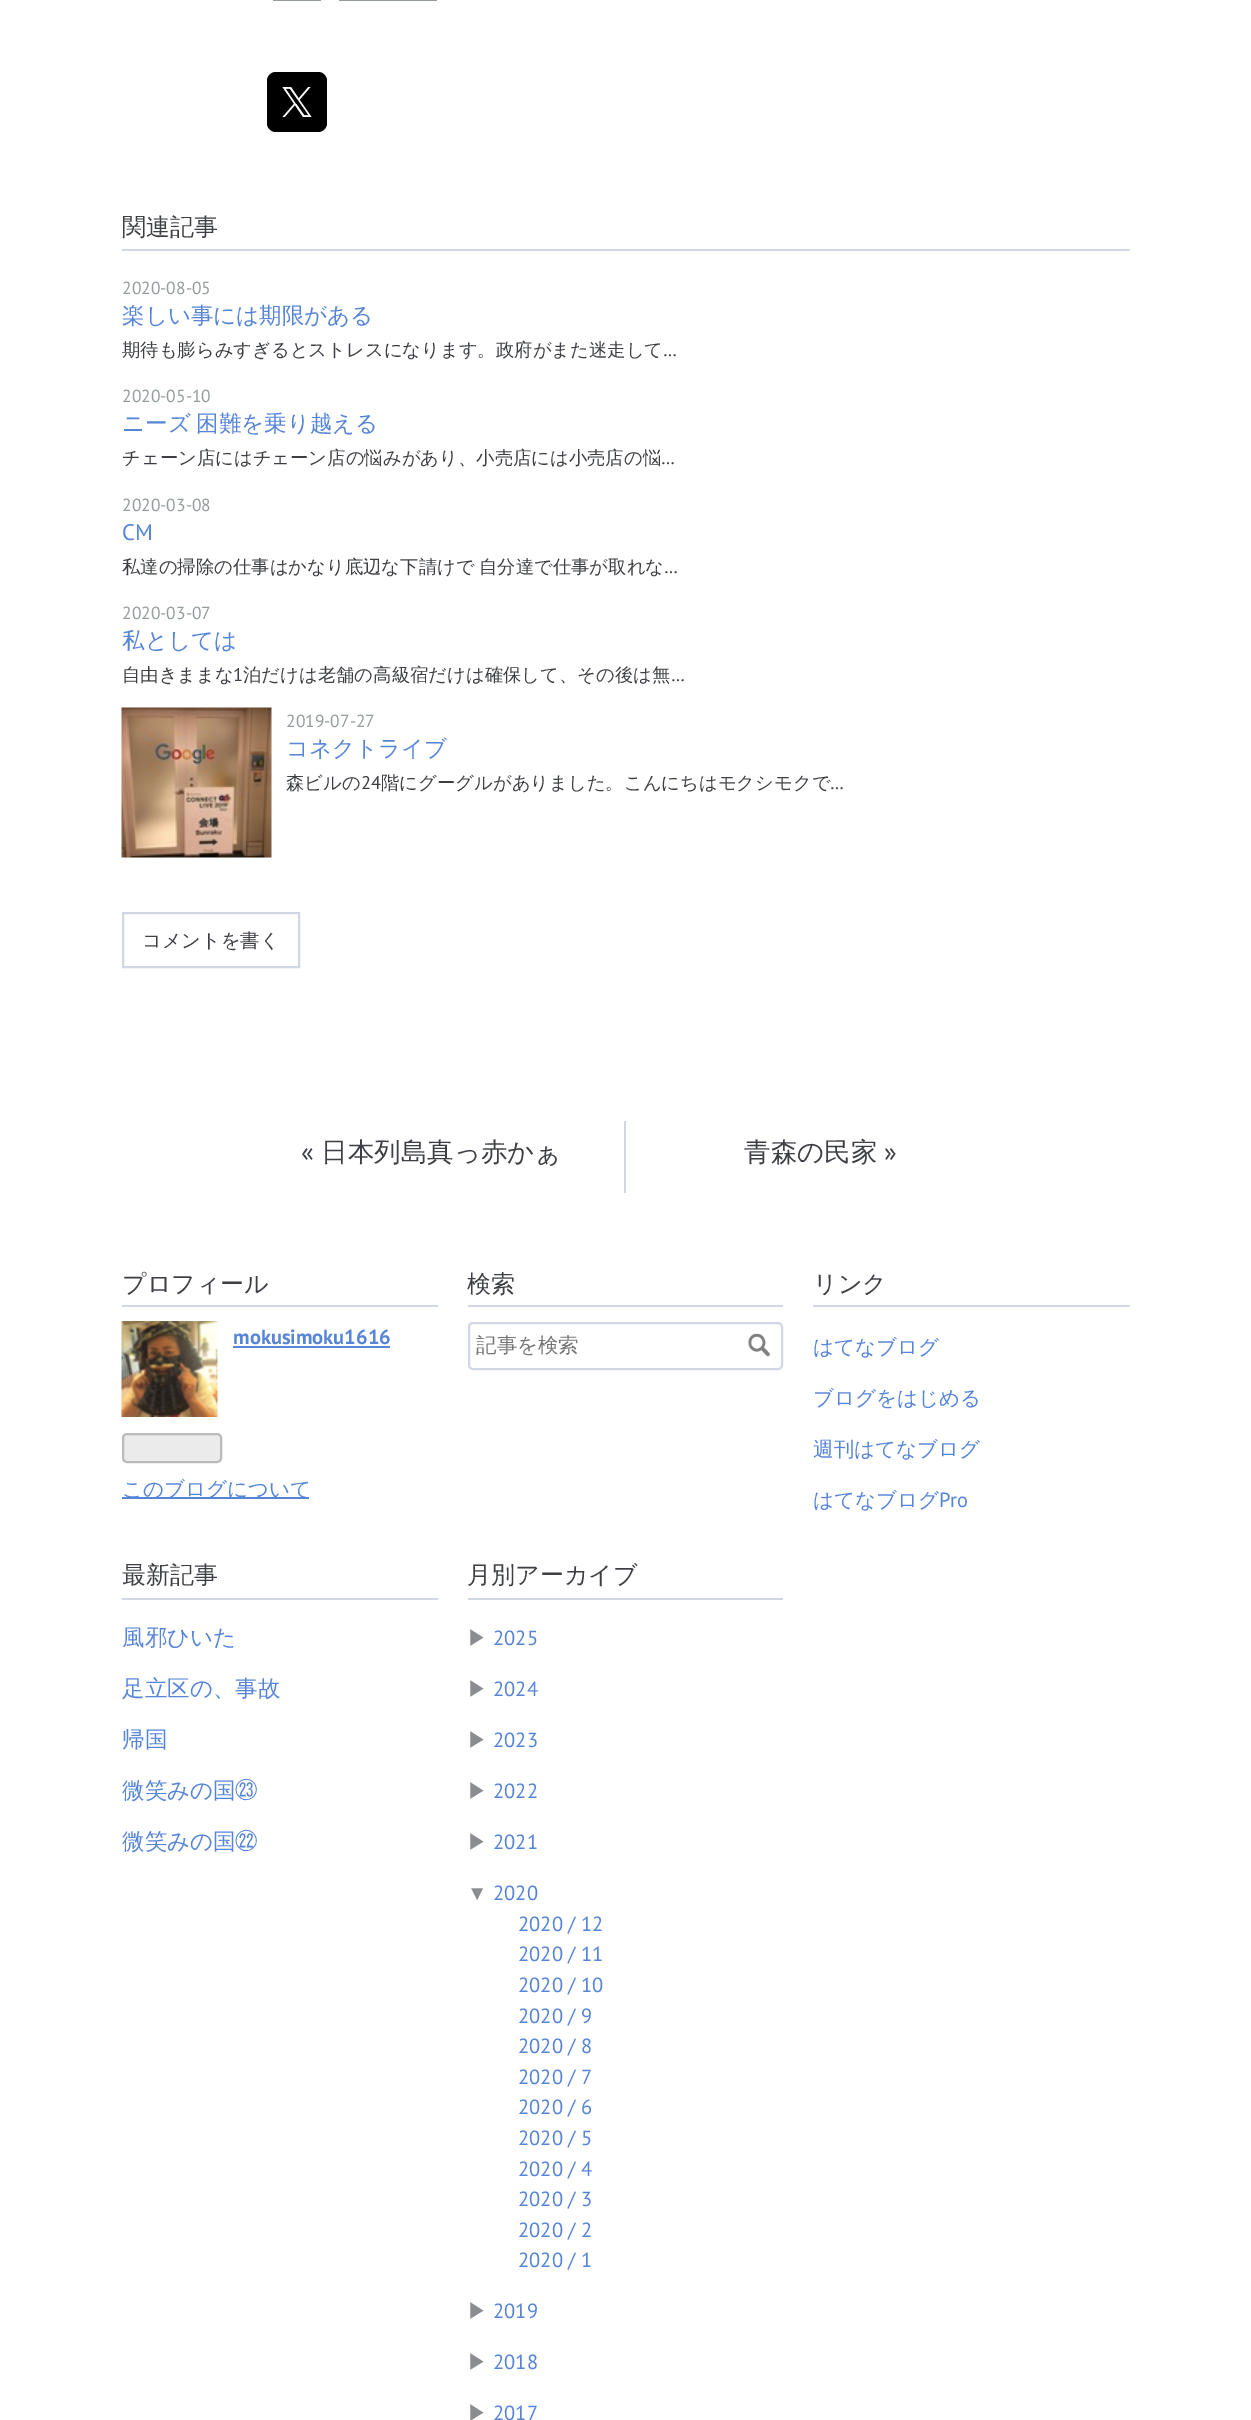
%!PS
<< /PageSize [1251 2420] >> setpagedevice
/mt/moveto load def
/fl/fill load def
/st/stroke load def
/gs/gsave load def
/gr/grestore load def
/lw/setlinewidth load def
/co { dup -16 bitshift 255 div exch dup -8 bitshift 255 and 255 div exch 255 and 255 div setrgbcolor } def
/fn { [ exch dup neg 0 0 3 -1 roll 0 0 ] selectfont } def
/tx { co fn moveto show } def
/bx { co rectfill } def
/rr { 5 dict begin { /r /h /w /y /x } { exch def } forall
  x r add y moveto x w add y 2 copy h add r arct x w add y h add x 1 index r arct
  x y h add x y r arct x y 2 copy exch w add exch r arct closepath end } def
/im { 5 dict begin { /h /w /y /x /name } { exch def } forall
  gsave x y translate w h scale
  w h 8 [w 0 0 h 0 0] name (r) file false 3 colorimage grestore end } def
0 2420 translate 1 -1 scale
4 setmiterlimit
0 0 1251 2420 16#FFFFFF bx
273 0 48 1 16#959C9E bx
339 0 98 1 16#959C9E bx
16#000000 co
267 72 60 60 9 rr fl
(media/1.raw) 282 87 30 30 im
122 249 1008 2 16#D2D7E5 bx
(media/2.raw) 121 707 151 151 im
2 lw
123 913 176 54 rectstroke
624 1121 2 72 16#D2D7E5 bx
122 1305 316 2 16#D2D7E5 bx
(media/3.raw) 121 1321 97 96 im
233 1346 157 2 16#5684D7 bx
16#EBEBEB co
123 1434 98 28 4 rr gs fl gr
16#BBBBBB co
st
122 1497 187 2 16#5684D7 bx
468 1305 315 2 16#D2D7E5 bx
469 1323 313 46 4 rr st
(media/4.raw) 748 1333 22 24 im
813 1305 317 2 16#D2D7E5 bx
122 1598 316 2 16#D2D7E5 bx
468 1598 315 2 16#D2D7E5 bx
(関連記事) 122 235 /WenQuanYiZenHei-Medium 24 16#3D3F44 tx
(2020-08-05) 122 294 /PTSans-Regular 17.5 16#959C9E tx
(楽しい事には期限がある) 122 323 /WenQuanYiZenHei-Medium 22.5 16#5684D7 tx
(期待も膨らみすぎるとストレスになります。政府がまた迷走して) 122 356 /WenQuanYiZenHei-Medium 18.35 16#3D3F44 tx
(…) 663 356 /PTSans-Regular 18.35 16#3D3F44 tx
(2020-05-10) 122 402 /PTSans-Regular 17.5 16#959C9E tx
/WenQuanYiZenHei-Medium 22.5 fn
16#5684D7 co
122 431 mt -1 0 32 (ニーズ 困難を乗り越える) widthshow
(チェーン店にはチェーン店の悩みがあり、小売店には小売店の悩) 122 464 /WenQuanYiZenHei-Medium 18.35 16#3D3F44 tx
(…) 661 464 /PTSans-Regular 18.35 16#3D3F44 tx
(2020-03-08) 122 511 /PTSans-Regular 17.5 16#959C9E tx
(CM) 122 540 /PTSans-Regular 22.5 16#5684D7 tx
/WenQuanYiZenHei-Medium 18.35 fn
16#3D3F44 co
122 573 mt -1 0 32 (私達の掃除の仕事はかなり底辺な下請けで 自分達で仕事が取れな) widthshow
(…) 664 573 /PTSans-Regular 18.35 16#3D3F44 tx
(2020-03-07) 122 619 /PTSans-Regular 17.5 16#959C9E tx
(私としては) 122 648 /WenQuanYiZenHei-Medium 22.5 16#5684D7 tx
(自由きままな) 122 681 /WenQuanYiZenHei-Medium 18.35 16#3D3F44 tx
(1) 233 681 /PTSans-Regular 18.35 16#3D3F44 tx
(泊だけは老舗の高級宿だけは確保して、その後は無) 243 681 /WenQuanYiZenHei-Medium 18.35 16#3D3F44 tx
(…) 671 681 /PTSans-Regular 18.35 16#3D3F44 tx
(2019-07-27) 286 727 /PTSans-Regular 17.5 16#959C9E tx
(コネクトライブ) 286 756 /WenQuanYiZenHei-Medium 22.5 16#5684D7 tx
(森ビルの) 286 789 /WenQuanYiZenHei-Medium 18.35 16#3D3F44 tx
(24) 361 789 /PTSans-Regular 18.35 16#3D3F44 tx
(階にグーグルがありました。こんにちはモクシモクで) 381 789 /WenQuanYiZenHei-Medium 18.35 16#3D3F44 tx
(…) 830 789 /PTSans-Regular 18.35 16#3D3F44 tx
(コメントを書く) 142 947 /WenQuanYiZenHei-Medium 19.25 16#3D3F44 tx
(«) 301 1161 /PTSans-Regular 26.5 16#3D3F44 tx
(日本列島真っ赤かぁ) 321 1161 /WenQuanYiZenHei-Medium 26.5 16#3D3F44 tx
(青森の民家) 744 1161 /WenQuanYiZenHei-Medium 26.5 16#3D3F44 tx
(») 884 1161 /PTSans-Regular 26.5 16#3D3F44 tx
(プロフィール) 122 1292 /WenQuanYiZenHei-Medium 24 16#3D3F44 tx
(mokusimoku1616) 233 1344 /PTSans-Bold 20.5 16#5684D7 tx
(このブログについて) 122 1496 /WenQuanYiZenHei-Medium 20.5 16#5684D7 tx
(検索) 467 1292 /WenQuanYiZenHei-Medium 24 16#3D3F44 tx
(記事を検索) 476 1352 /WenQuanYiZenHei-Medium 20.5 16#757575 tx
(リンク) 813 1292 /WenQuanYiZenHei-Medium 24 16#3D3F44 tx
(はてなブログ) 813 1354 /WenQuanYiZenHei-Medium 20.5 16#5684D7 tx
(ブログをはじめる) 813 1405 /WenQuanYiZenHei-Medium 20.5 16#5684D7 tx
(週刊はてなブログ) 813 1456 /WenQuanYiZenHei-Medium 20.5 16#5684D7 tx
(はてなブログ) 813 1507 /WenQuanYiZenHei-Medium 20.5 16#5684D7 tx
(Pro) 939 1507 /PTSans-Regular 20.5 16#5684D7 tx
(最新記事) 122 1583 /WenQuanYiZenHei-Medium 24 16#3D3F44 tx
(風邪ひいた) 122 1645 /WenQuanYiZenHei-Medium 22.5 16#5684D7 tx
(足立区の、事故) 122 1696 /WenQuanYiZenHei-Medium 22.5 16#5684D7 tx
(帰国) 122 1747 /WenQuanYiZenHei-Medium 22.5 16#5684D7 tx
(微笑みの国) 122 1798 /WenQuanYiZenHei-Medium 22.5 16#5684D7 tx
(㉓) 235 1798 /IPAPGothic-Regular 22.5 16#5684D7 tx
(微笑みの国) 122 1849 /WenQuanYiZenHei-Medium 22.5 16#5684D7 tx
(㉒) 235 1849 /IPAPGothic-Regular 22.5 16#5684D7 tx
(月別アーカイブ) 467 1583 /WenQuanYiZenHei-Medium 24 16#3D3F44 tx
(▶) 467 1645 /WenQuanYiZenHei-Medium 20.5 16#8B8C8F tx
(2025) 493 1645 /PTSans-Regular 20.5 16#5684D7 tx
(▶) 467 1696 /WenQuanYiZenHei-Medium 20.5 16#8B8C8F tx
(2024) 493 1696 /PTSans-Regular 20.5 16#5684D7 tx
(▶) 467 1747 /WenQuanYiZenHei-Medium 20.5 16#8B8C8F tx
(2023) 493 1747 /PTSans-Regular 20.5 16#5684D7 tx
(▶) 467 1798 /WenQuanYiZenHei-Medium 20.5 16#8B8C8F tx
(2022) 493 1798 /PTSans-Regular 20.5 16#5684D7 tx
(▶) 467 1849 /WenQuanYiZenHei-Medium 20.5 16#8B8C8F tx
(2021) 493 1849 /PTSans-Regular 20.5 16#5684D7 tx
(▼) 467 1900 /LiberationSans-Regular 20.5 16#8B8C8F tx
(2020) 493 1900 /PTSans-Regular 20.5 16#5684D7 tx
(2020 / 12) 518 1931 /PTSans-Regular 20.5 16#5684D7 tx
(2020 / 11) 518 1961 /PTSans-Regular 20.5 16#5684D7 tx
(2020 / 10) 518 1992 /PTSans-Regular 20.5 16#5684D7 tx
(2020 / 9) 518 2023 /PTSans-Regular 20.5 16#5684D7 tx
(2020 / 8) 518 2053 /PTSans-Regular 20.5 16#5684D7 tx
(2020 / 7) 518 2084 /PTSans-Regular 20.5 16#5684D7 tx
(2020 / 6) 518 2114 /PTSans-Regular 20.5 16#5684D7 tx
(2020 / 5) 518 2145 /PTSans-Regular 20.5 16#5684D7 tx
(2020 / 4) 518 2176 /PTSans-Regular 20.5 16#5684D7 tx
(2020 / 3) 518 2206 /PTSans-Regular 20.5 16#5684D7 tx
(2020 / 2) 518 2237 /PTSans-Regular 20.5 16#5684D7 tx
(2020 / 1) 518 2267 /PTSans-Regular 20.5 16#5684D7 tx
(▶) 467 2318 /WenQuanYiZenHei-Medium 20.5 16#8B8C8F tx
(2019) 493 2318 /PTSans-Regular 20.5 16#5684D7 tx
(▶) 467 2369 /WenQuanYiZenHei-Medium 20.5 16#8B8C8F tx
(2018) 493 2369 /PTSans-Regular 20.5 16#5684D7 tx
(▶) 467 2420 /WenQuanYiZenHei-Medium 20.5 16#8B8C8F tx
(2017) 493 2420 /PTSans-Regular 20.5 16#5684D7 tx
showpage
